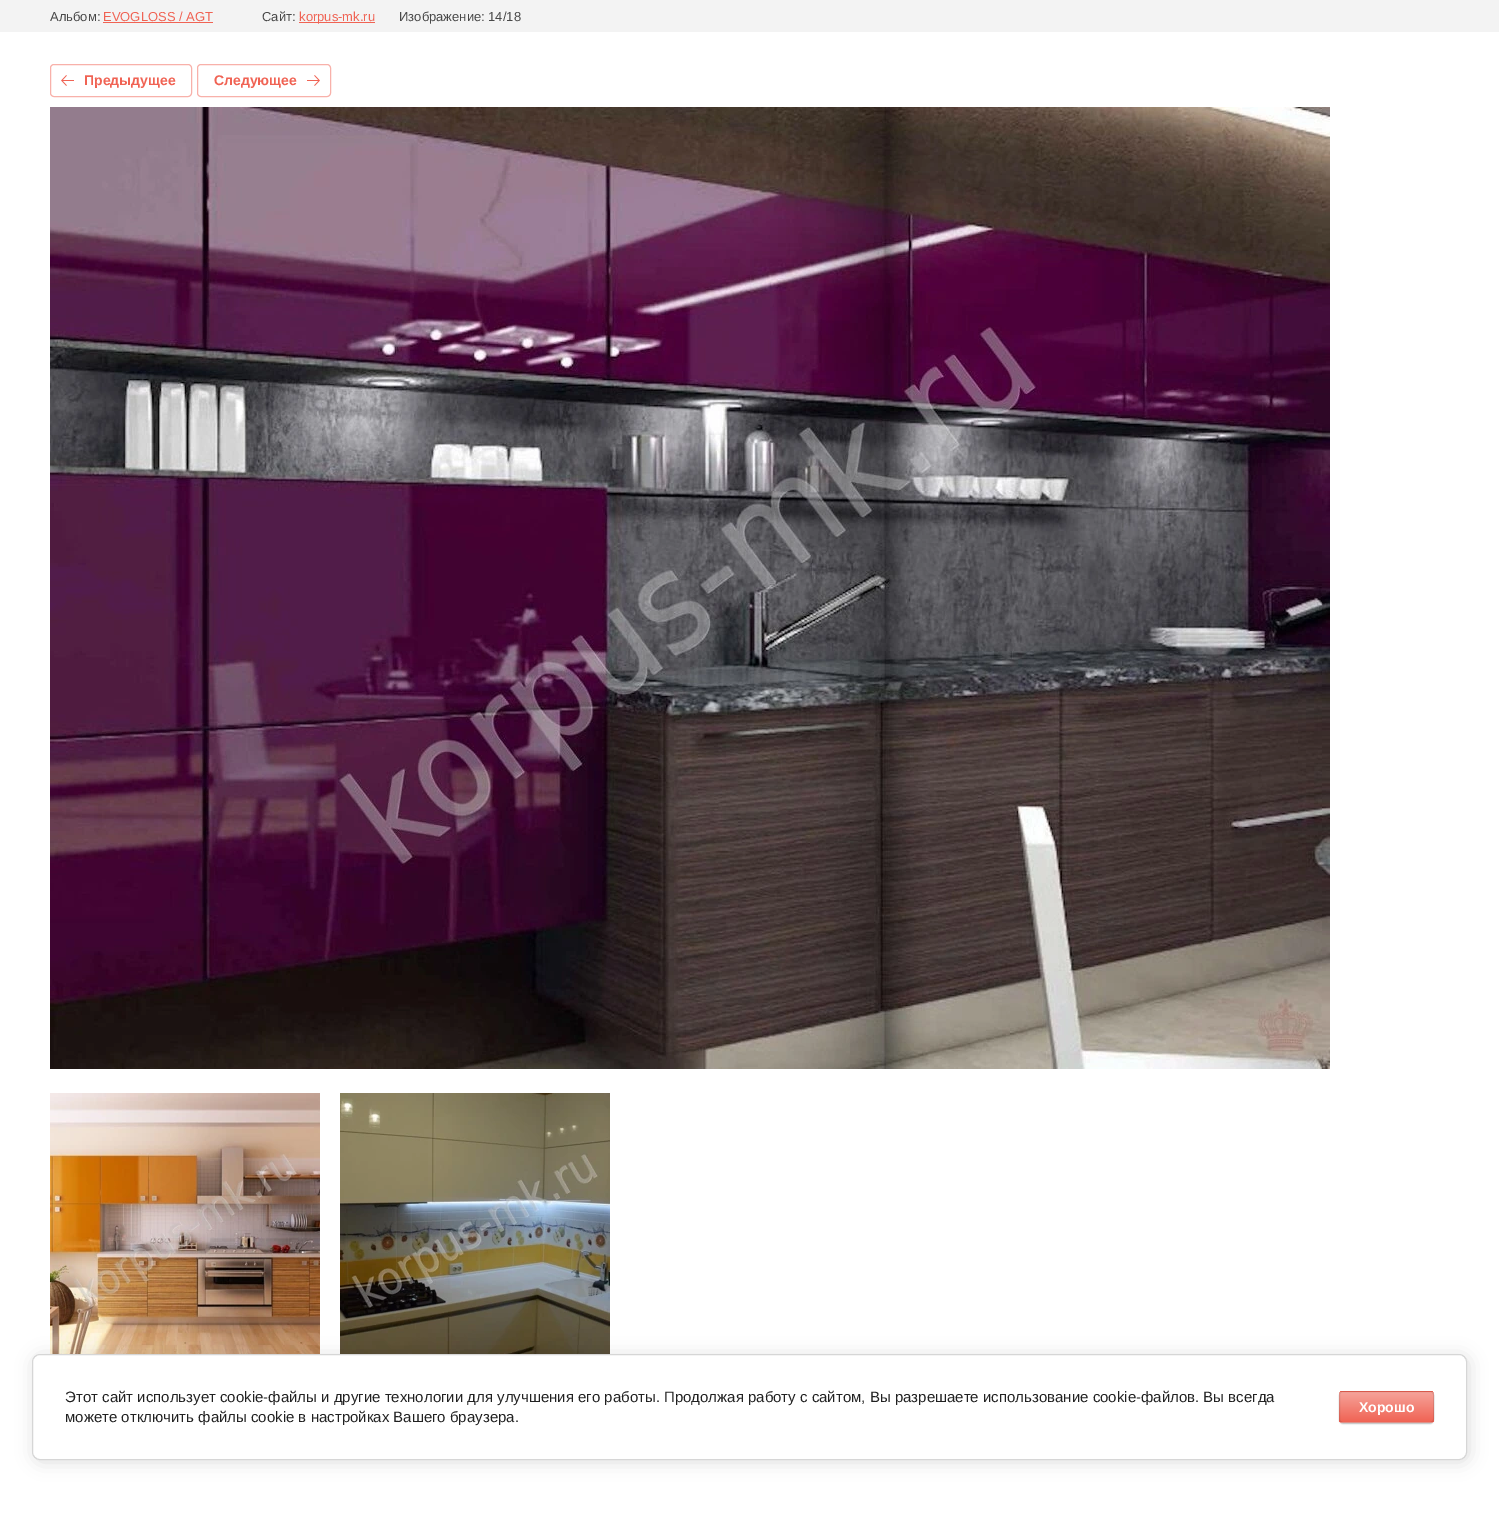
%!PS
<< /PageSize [1499 1524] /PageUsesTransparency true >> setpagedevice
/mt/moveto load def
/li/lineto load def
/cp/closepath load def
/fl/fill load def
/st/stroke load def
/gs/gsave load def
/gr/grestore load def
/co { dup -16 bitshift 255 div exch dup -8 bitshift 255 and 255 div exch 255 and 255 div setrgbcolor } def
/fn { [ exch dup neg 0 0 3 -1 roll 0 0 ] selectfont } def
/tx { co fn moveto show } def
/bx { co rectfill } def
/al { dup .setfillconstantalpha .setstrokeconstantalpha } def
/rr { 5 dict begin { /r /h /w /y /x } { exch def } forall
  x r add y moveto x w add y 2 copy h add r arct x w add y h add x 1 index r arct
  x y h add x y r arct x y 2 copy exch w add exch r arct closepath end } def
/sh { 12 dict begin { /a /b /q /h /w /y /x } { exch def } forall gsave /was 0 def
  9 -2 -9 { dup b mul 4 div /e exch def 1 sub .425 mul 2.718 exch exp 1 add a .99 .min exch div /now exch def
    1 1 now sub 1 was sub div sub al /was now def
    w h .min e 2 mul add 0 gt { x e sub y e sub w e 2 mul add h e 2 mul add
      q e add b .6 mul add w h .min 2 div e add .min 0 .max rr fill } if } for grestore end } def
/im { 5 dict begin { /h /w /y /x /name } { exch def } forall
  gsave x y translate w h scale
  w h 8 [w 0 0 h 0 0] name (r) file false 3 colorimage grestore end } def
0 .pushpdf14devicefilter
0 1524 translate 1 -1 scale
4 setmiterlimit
0 0 1499 1524 16#FFFFFF bx
0 0 1499 32 16#F3F3F3 bx
103 22 110 1 16#F06354 bx
299 22 76 1 16#F06354 bx
16#F8B1AA co
50.5 64.5 141 32 3.5 rr st
(media/1.raw) 61 75 13 11 im
197.5 64.5 133 32 3.5 rr st
(media/2.raw) 307 75 13 11 im
(media/3.raw) 50 107 1280 962 im
(media/4.raw) 50 1093 270 261 im
(media/5.raw) 340 1093 270 261 im
16#000000 co
34 1356 1435 106 8 9 .14 sh
16#FFFFFF co
32.5 1354.5 1434 105 7.5 rr gs fl gr
16#D6D6D6 co
st
16#000000 co
1339 1392 95 32 4 .5 .2 sh
gs
1339 1391 95 32 4 rr clip newpath
gs 1339 1391 mt 1434 1391 li 1434 1392 li 1339 1392 li cp clip newpath
<< /ShadingType 2 /ColorSpace /DeviceRGB /Coords [1387 1362 1387 1392] /Extend [true true] /Function << /FunctionType 2 /Domain [0 1] /C0 [.965 .639 .604] /C1 [.941 .388 .329] /N 1 >> >> shfill gr
gs 1339 1392 mt 1434 1392 li 1434 1422 li 1339 1422 li cp clip newpath
<< /ShadingType 2 /ColorSpace /DeviceRGB /Coords [1387 1392 1387 1422] /Extend [true true] /Function << /FunctionType 2 /Domain [0 1] /C0 [.965 .639 .604] /C1 [.941 .388 .329] /N 1 >> >> shfill gr
gs 1339 1422 mt 1434 1422 li 1434 1423 li 1339 1423 li cp clip newpath
<< /ShadingType 2 /ColorSpace /DeviceRGB /Coords [1387 1422 1387 1452] /Extend [true true] /Function << /FunctionType 2 /Domain [0 1] /C0 [.965 .639 .604] /C1 [.941 .388 .329] /N 1 >> >> shfill gr
gr
0.1 al
1339.5 1391.5 94 31 3.5 rr st
1 al
(Альбом:) 50 21 /LiberationSans-Regular 13 16#484848 tx
(EVOGLOSS / AGT) 103 21 /LiberationSans-Regular 13 16#F06354 tx
(Сайт:) 262 21 /LiberationSans-Regular 13 16#484848 tx
(korpus-mk.ru) 299 21 /LiberationSans-Regular 13 16#F06354 tx
(Изображение: 14/18) 399 21 /LiberationSans-Regular 13 16#484848 tx
(Предыдущее) 84 85 /LiberationSans-Bold 14 16#F06354 tx
(Следующее) 214 85 /LiberationSans-Bold 14 16#F06354 tx
(Этот сайт использует cookie-файлы и другие технологии для улучшения его работы. Продолжая работу с сайтом, Вы разрешаете использование cookie-файлов. Вы всегда) 65 1402 /LiberationSans-Regular 15 16#212121 tx
(можете отключить файлы cookie в настройках Вашего браузера.) 65 1422 /LiberationSans-Regular 15 16#212121 tx
(Хорошо) 1359 1412 /LiberationSans-Bold 14 16#FFFFFF tx
.poppdf14devicefilter showpage
